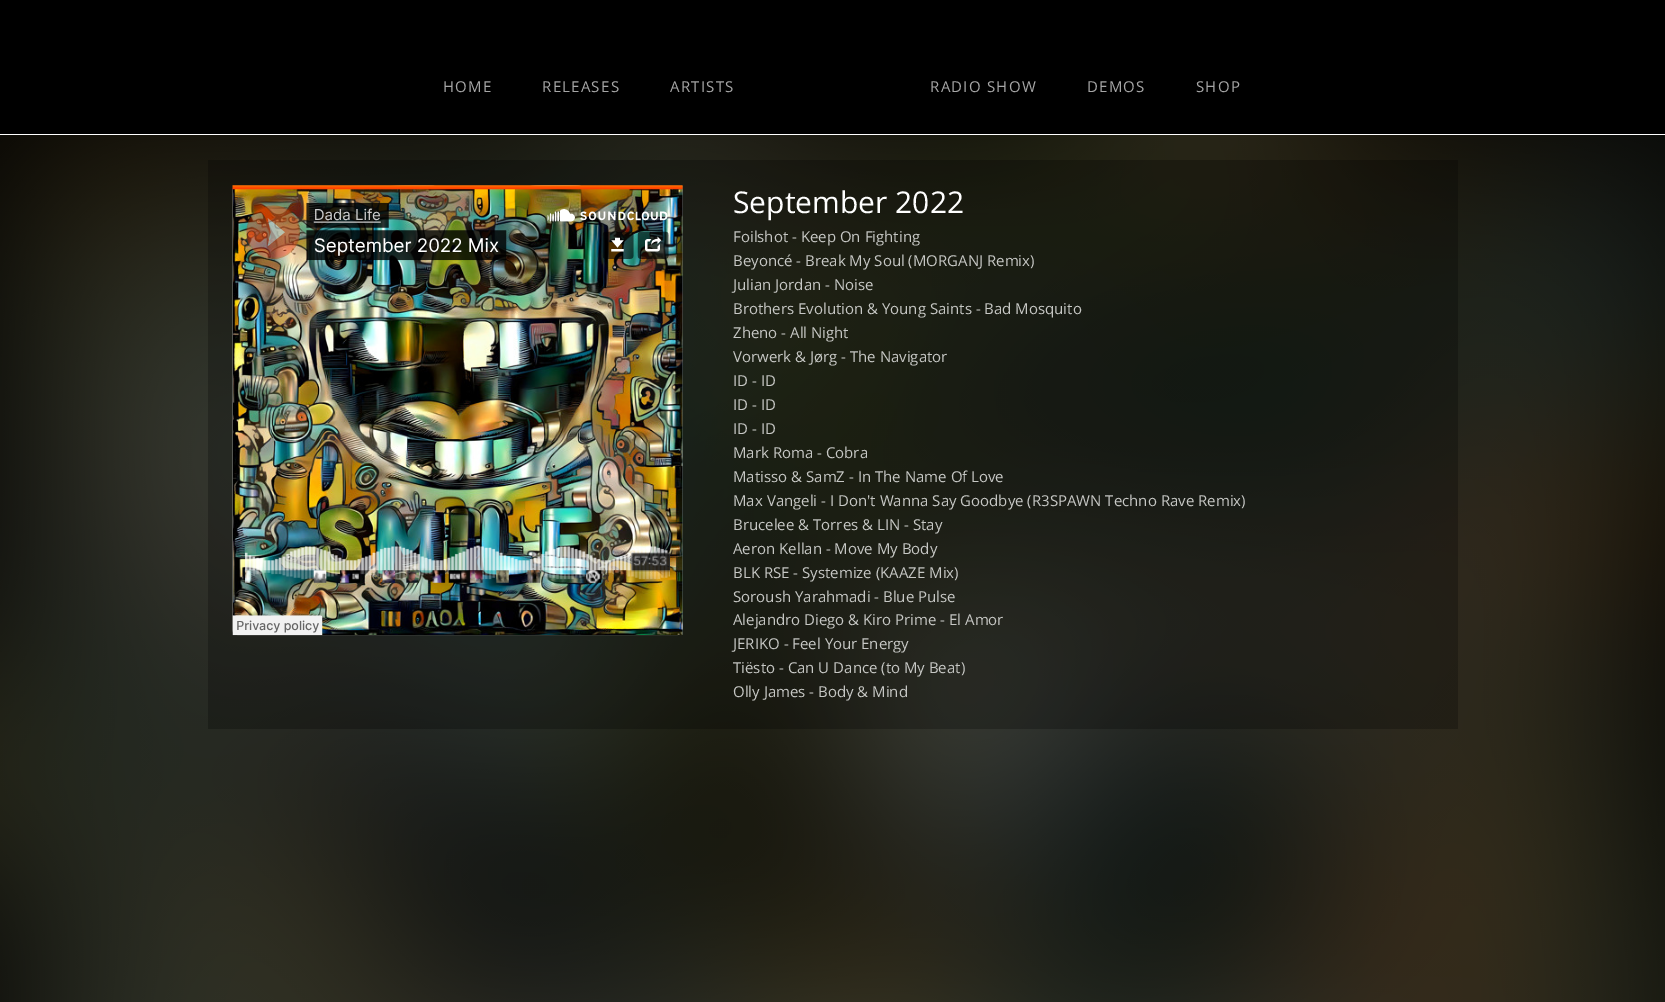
%!PS
<< /PageSize [1665 1002] /PageUsesTransparency true >> setpagedevice
/mt/moveto load def
/co { dup -16 bitshift 255 div exch dup -8 bitshift 255 and 255 div exch 255 and 255 div setrgbcolor } def
/fn { [ exch dup neg 0 0 3 -1 roll 0 0 ] selectfont } def
/tx { co fn moveto show } def
/bx { co rectfill } def
/al { dup .setfillconstantalpha .setstrokeconstantalpha } def
/im { 5 dict begin { /h /w /y /x /name } { exch def } forall
  gsave x y translate w h scale
  w h 8 [w 0 0 h 0 0] name (r) file false 3 colorimage grestore end } def
0 .pushpdf14devicefilter
0 1002 translate 1 -1 scale
4 setmiterlimit
0 0 1665 1002 16#000000 bx
0 134 1665 1 16#FFFFFF bx
(media/1.raw) 0 135 1665 867 im
0.25 al
208 160 1250 569 16#000000 bx
1 al
(media/2.raw) 232 185 451 451 im
/OpenSans-Regular 15 fn
16#A6A6A6 co
443 92 mt 1.25 0 (HOME) ashow
542 92 mt 1.25 0 (RELEASES) ashow
670 92 mt 1.25 0 (ARTISTS) ashow
930 92 mt 1.25 0 (RADIO SHOW) ashow
1087 92 mt 1.25 0 (DEMOS) ashow
1196 92 mt 1.25 0 (SHOP) ashow
(September 2022) 733 213 /OpenSans-Regular 30 16#FFFFFF tx
(Foilshot - Keep On Fighting) 733 242 /OpenSans-Regular 15 16#C6C7C4 tx
(Beyoncé - Break My Soul \(MORGANJ Remix\)) 733 266 /OpenSans-Regular 15 16#C6C7C4 tx
(Julian Jordan - Noise) 733 290 /OpenSans-Regular 15 16#C6C7C4 tx
(Brothers Evolution & Young Saints - Bad Mosquito) 733 314 /OpenSans-Regular 15 16#C6C7C4 tx
(Zheno - All Night) 733 338 /OpenSans-Regular 15 16#C6C7C4 tx
(Vorwerk & Jørg - The Navigator) 733 362 /OpenSans-Regular 15 16#C6C7C4 tx
(ID - ID) 733 386 /OpenSans-Regular 15 16#C6C7C4 tx
(ID - ID) 733 410 /OpenSans-Regular 15 16#C6C7C4 tx
(ID - ID) 733 434 /OpenSans-Regular 15 16#C6C7C4 tx
(Mark Roma - Cobra) 733 458 /OpenSans-Regular 15 16#C6C7C4 tx
(Matisso & SamZ - In The Name Of Love) 733 482 /OpenSans-Regular 15 16#C6C7C4 tx
(Max Vangeli - I Don't Wanna Say Goodbye \(R3SPAWN Techno Rave Remix\)) 733 506 /OpenSans-Regular 15 16#C6C7C4 tx
(Brucelee & Torres & LIN - Stay) 733 530 /OpenSans-Regular 15 16#C6C7C4 tx
(Aeron Kellan - Move My Body) 733 554 /OpenSans-Regular 15 16#C6C7C4 tx
(BLK RSE - Systemize \(KAAZE Mix\)) 733 578 /OpenSans-Regular 15 16#C6C7C4 tx
(Soroush Yarahmadi - Blue Pulse) 733 602 /OpenSans-Regular 15 16#C6C7C4 tx
(Alejandro Diego & Kiro Prime - El Amor) 733 625 /OpenSans-Regular 15 16#C6C7C4 tx
(JERIKO - Feel Your Energy) 733 649 /OpenSans-Regular 15 16#C6C7C4 tx
(Tiësto - Can U Dance \(to My Beat\)) 733 673 /OpenSans-Regular 15 16#C6C7C4 tx
(Olly James - Body & Mind) 733 697 /OpenSans-Regular 15 16#C6C7C4 tx
.poppdf14devicefilter showpage
